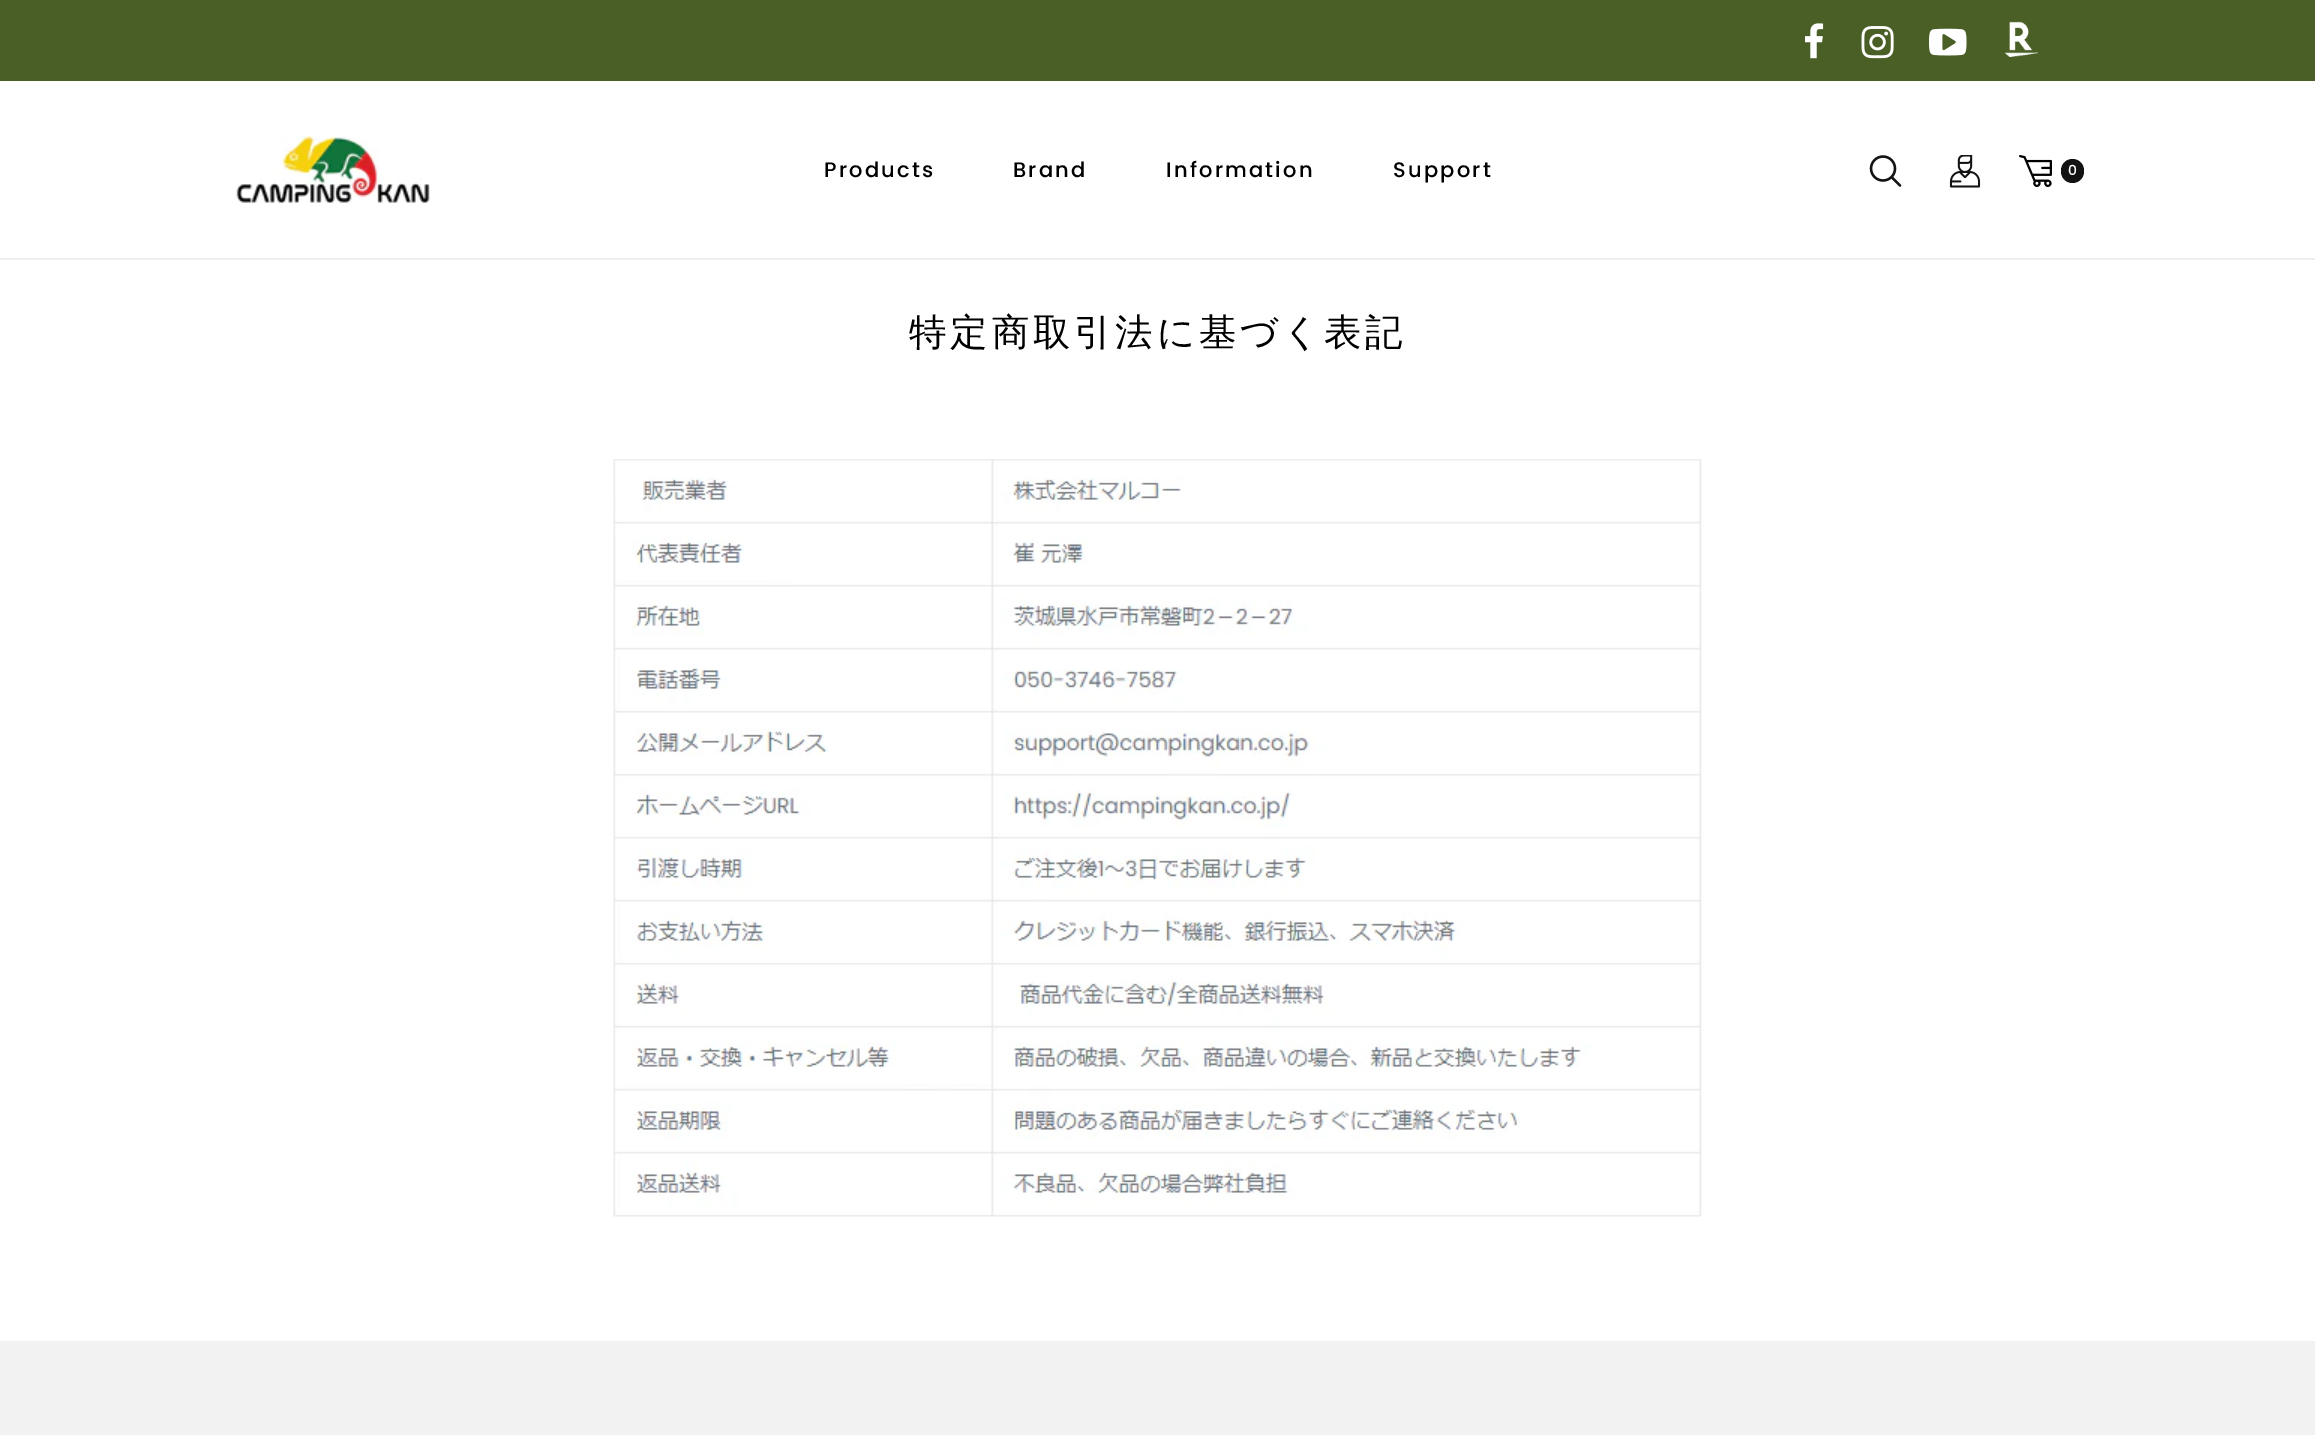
%!PS
<< /PageSize [2315 1435] >> setpagedevice
/mt/moveto load def
/fl/fill load def
/co { dup -16 bitshift 255 div exch dup -8 bitshift 255 and 255 div exch 255 and 255 div setrgbcolor } def
/fn { [ exch dup neg 0 0 3 -1 roll 0 0 ] selectfont } def
/tx { co fn moveto show } def
/bx { co rectfill } def
/rr { 5 dict begin { /r /h /w /y /x } { exch def } forall
  x r add y moveto x w add y 2 copy h add r arct x w add y h add x 1 index r arct
  x y h add x y r arct x y 2 copy exch w add exch r arct closepath end } def
/im { 5 dict begin { /h /w /y /x /name } { exch def } forall
  gsave x y translate w h scale
  w h 8 [w 0 0 h 0 0] name (r) file false 3 colorimage grestore end } def
0 1435 translate 1 -1 scale
4 setmiterlimit
0 0 2315 1435 16#FFFFFF bx
0 0 2315 81 16#4A5F26 bx
(media/1.raw) 1805 23 19 36 im
(media/2.raw) 1861 26 33 33 im
(media/3.raw) 1929 28 38 28 im
(media/4.raw) 2004 21 34 36 im
0 258 2315 2 16#EEEEEE bx
(media/5.raw) 236 136 194 67 im
(media/6.raw) 1869 155 33 32 im
(media/7.raw) 1949 155 32 33 im
(media/8.raw) 2019 155 33 32 im
16#141313 co
2061 159 23 24 11.5 rr fl
(media/9.raw) 613 459 1089 758 im
0 1341 2315 94 16#F2F2F2 bx
/Poppins-Medium 21 fn
16#000000 co
824 177 mt 2.25 0 (Products) ashow
1013 177 mt 2.25 0 (Brand) ashow
1166 177 mt 2.25 0 (Information) ashow
1393 177 mt 2.25 0 (Support) ashow
(0) 2068 175 /Poppins-Medium 14 16#FFFFFF tx
/WenQuanYiZenHei-Medium 37.5 fn
16#000000 co
909 345 mt 3.75 0 (特定商取引法に基づく表記) ashow
showpage
